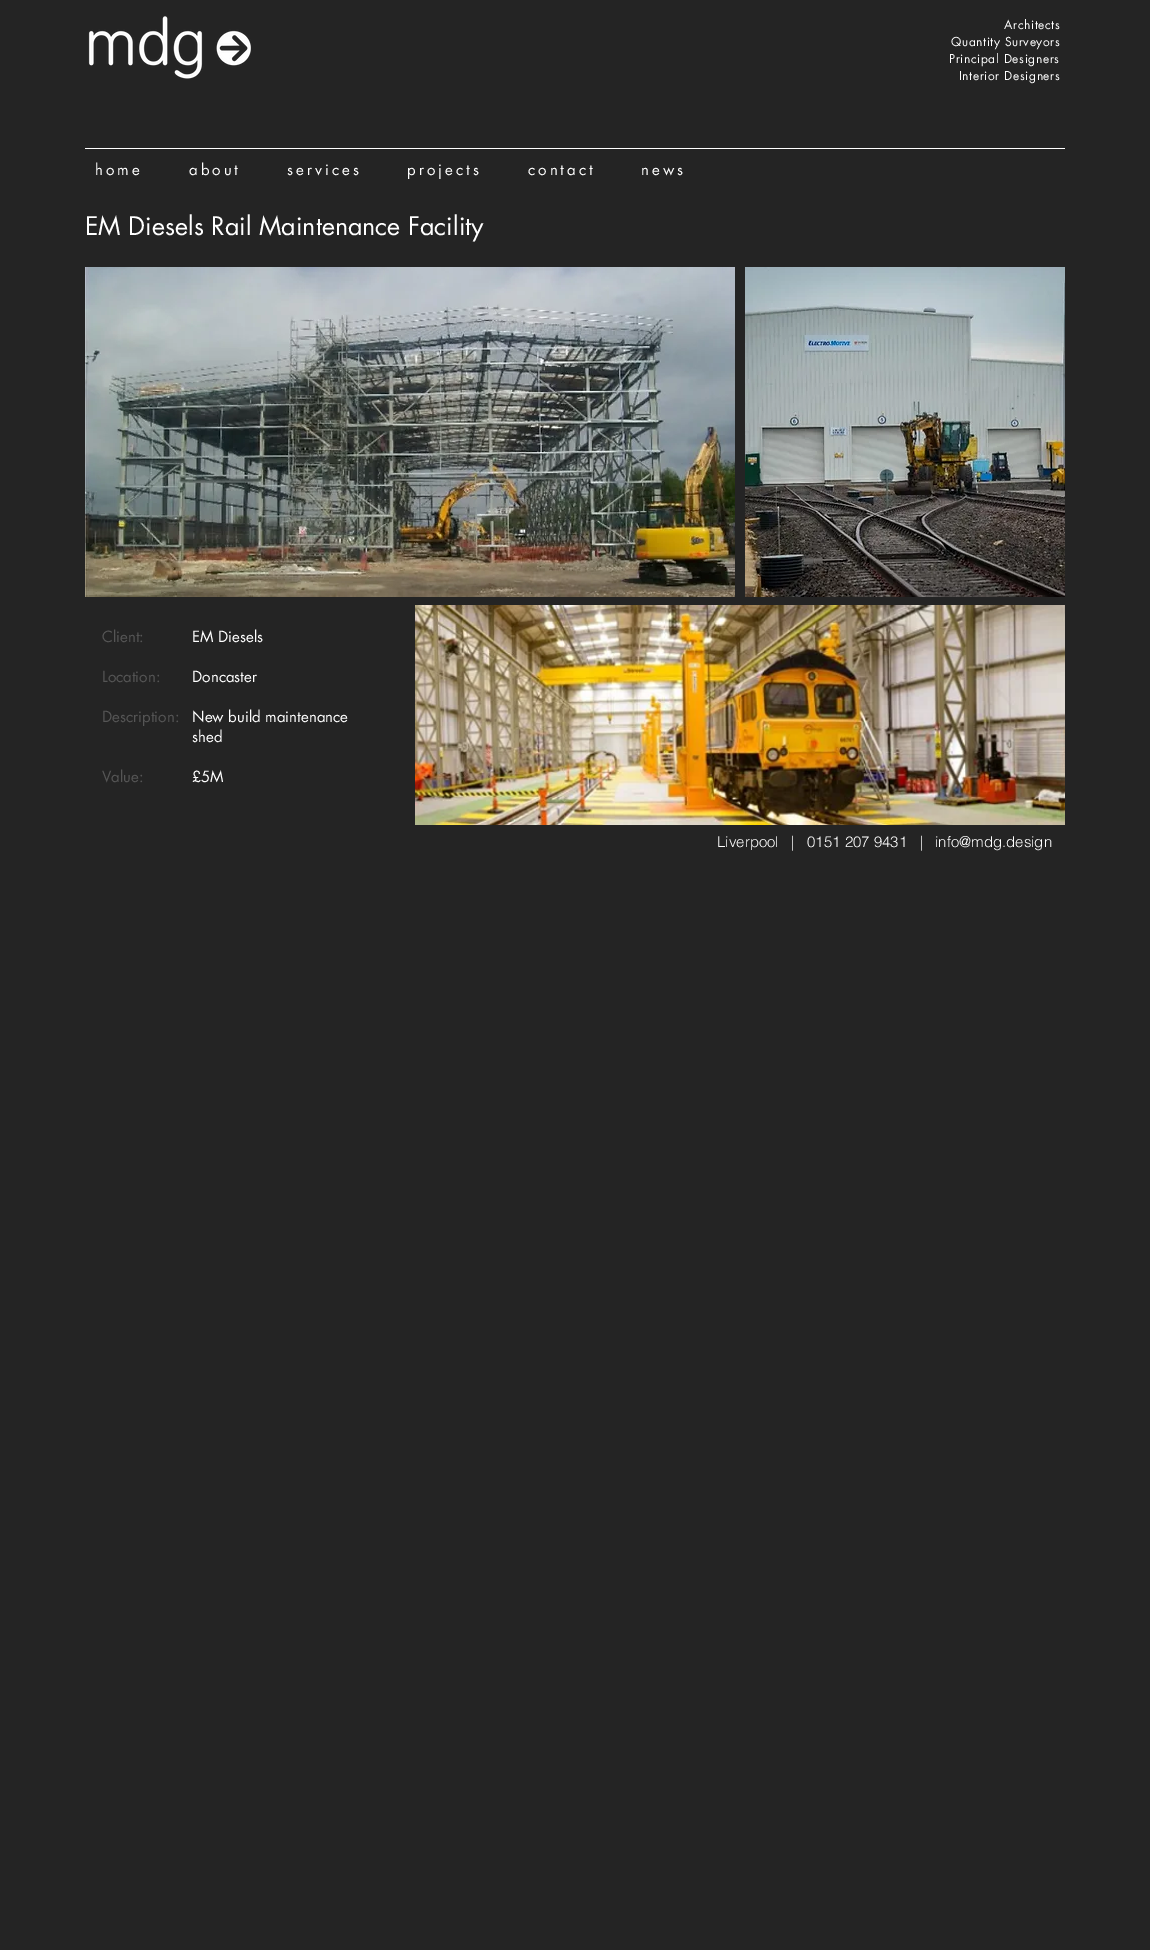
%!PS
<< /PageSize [1150 1950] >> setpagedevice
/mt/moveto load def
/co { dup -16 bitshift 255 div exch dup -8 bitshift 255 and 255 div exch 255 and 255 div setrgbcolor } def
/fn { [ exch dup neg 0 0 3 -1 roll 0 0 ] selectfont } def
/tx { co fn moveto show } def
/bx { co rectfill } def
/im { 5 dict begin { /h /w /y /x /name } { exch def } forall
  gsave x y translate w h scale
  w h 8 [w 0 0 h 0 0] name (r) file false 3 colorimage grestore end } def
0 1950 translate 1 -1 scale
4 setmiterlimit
0 0 1150 1950 16#242424 bx
(media/1.raw) 88 16 163 63 im
85 148 980 1 16#FFFFFF bx
(media/2.raw) 85 267 650 330 im
(media/3.raw) 745 267 320 330 im
(media/4.raw) 415 605 650 220 im
/futura-Regular 12 fn
1004 29 mt .6 0 (Architects) ashow
951 46 mt .6 0 (Quantity Surveyors) ashow
949 63 mt .6 0 (Principal Designers) ashow
959 80 mt .6 0 (Interior Designers) ashow
/futura-Regular 15 fn
95 175 mt 3 0 (home) ashow
189 175 mt 3 0 (about) ashow
287 175 mt 3 0 (services) ashow
407 175 mt 3 0 (projects) ashow
528 175 mt 3 0 (contact) ashow
641 175 mt 3 0 (news) ashow
(EM Diesels Rail Maintenance Facility) 85 235 /futura-Regular 25 16#FFFFFF tx
(Client:) 102 642 /futura-Regular 15 16#555555 tx
(Location:) 102 682 /futura-Regular 15 16#555555 tx
(Description:) 102 722 /futura-Regular 15 16#555555 tx
(Value:) 102 782 /futura-Regular 15 16#555555 tx
(EM Diesels) 192 642 /futura-Regular 15 16#FFFFFF tx
(Doncaster) 192 682 /futura-Regular 15 16#FFFFFF tx
(New build maintenance) 192 722 /futura-Regular 15 16#FFFFFF tx
(shed) 192 742 /futura-Regular 15 16#FFFFFF tx
(£5M) 192 782 /futura-Regular 15 16#FFFFFF tx
(Liverpool   |   0151 207 9431   |) 717 847 /helvetica-Light 15 16#FFFFFF tx
(info@mdg.design) 935 847 /helvetica-Light 15 16#FFFFFF tx
showpage
